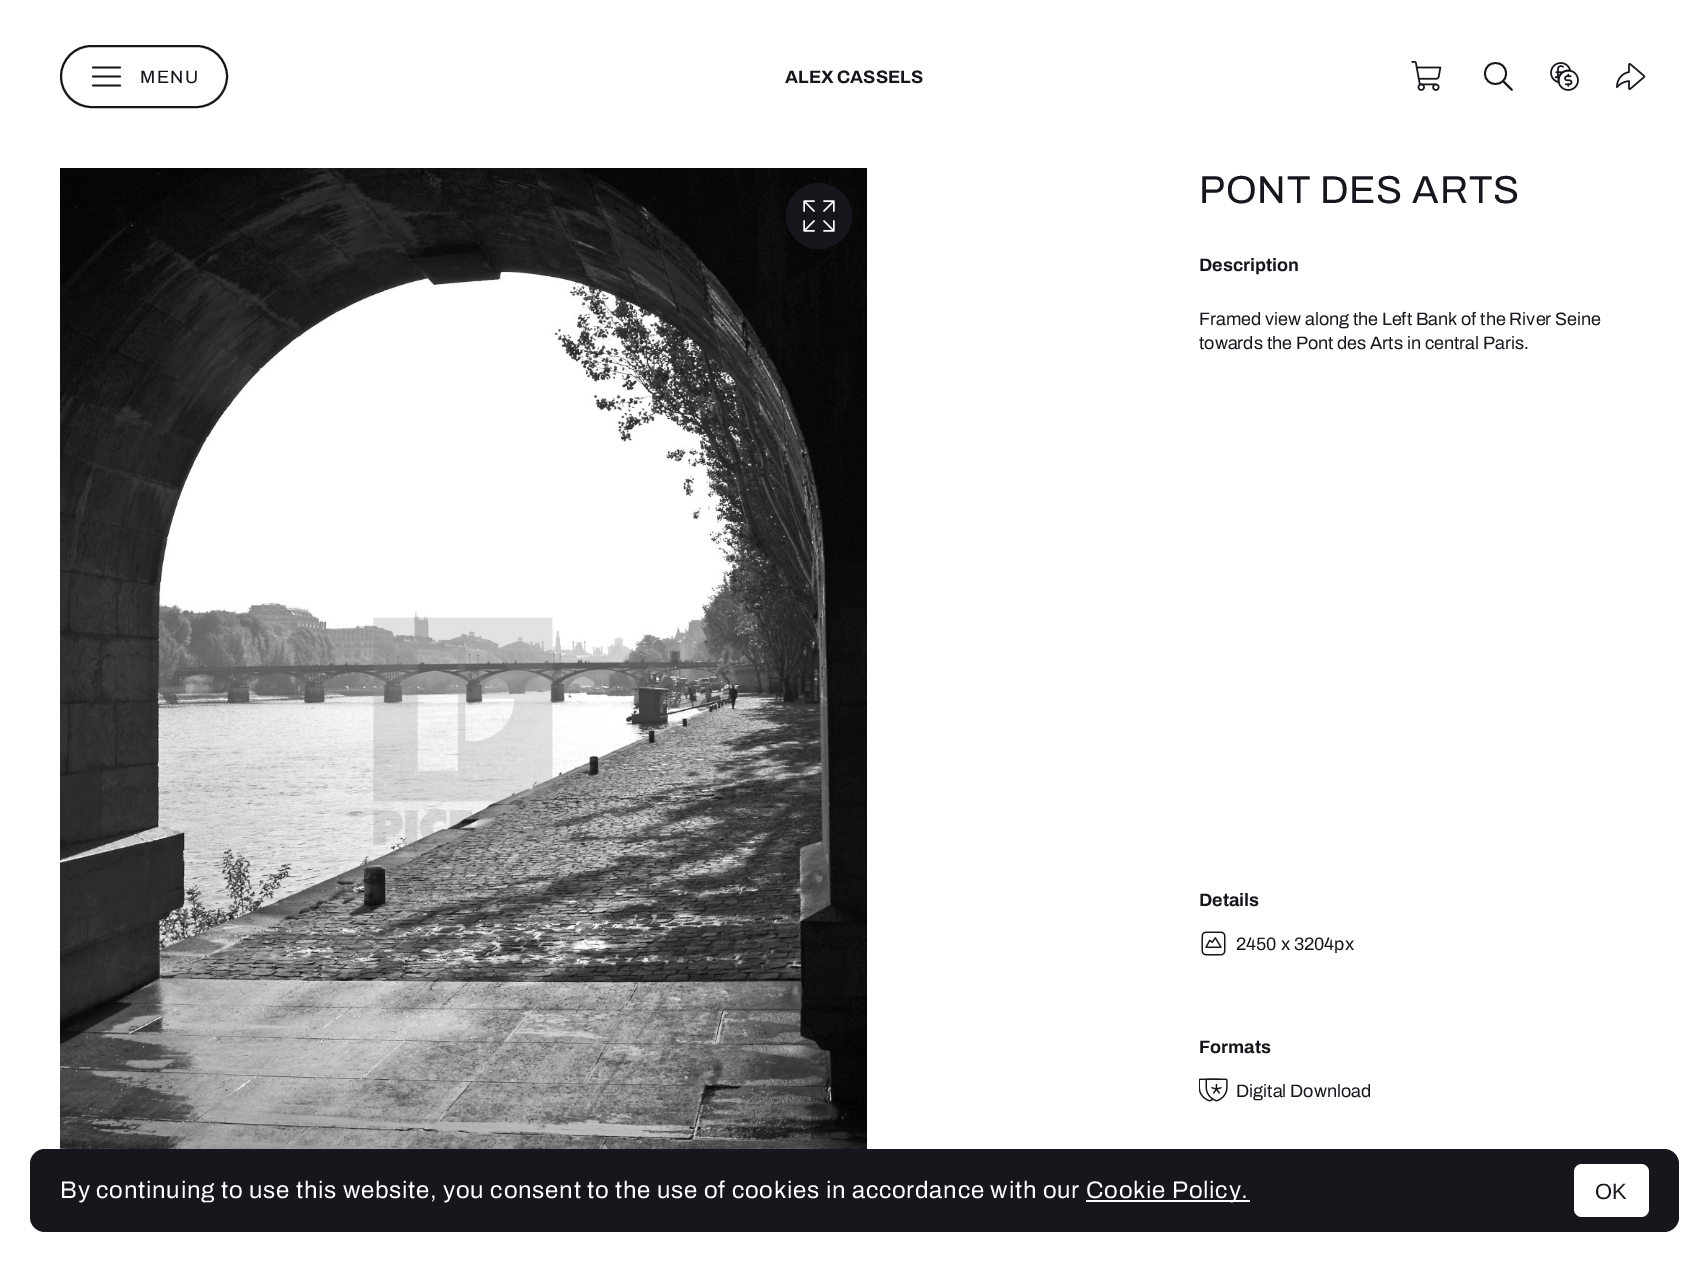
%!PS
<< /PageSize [1708 1284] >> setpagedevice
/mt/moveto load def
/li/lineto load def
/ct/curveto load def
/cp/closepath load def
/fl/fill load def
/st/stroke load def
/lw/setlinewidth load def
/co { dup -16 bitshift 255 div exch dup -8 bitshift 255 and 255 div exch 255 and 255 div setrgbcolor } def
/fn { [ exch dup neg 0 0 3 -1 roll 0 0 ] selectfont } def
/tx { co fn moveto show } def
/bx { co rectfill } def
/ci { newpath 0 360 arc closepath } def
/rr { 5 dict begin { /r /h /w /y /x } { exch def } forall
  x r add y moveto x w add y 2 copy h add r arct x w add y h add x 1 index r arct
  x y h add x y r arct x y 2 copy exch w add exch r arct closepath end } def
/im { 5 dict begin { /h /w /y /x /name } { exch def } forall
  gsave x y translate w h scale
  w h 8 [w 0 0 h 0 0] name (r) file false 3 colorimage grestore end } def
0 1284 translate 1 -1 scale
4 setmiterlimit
0 0 1708 1284 16#FFFFFF bx
16#16161D co
2 lw
61 46 166 61 30.5 rr st
1.8 lw
1 setlinecap
1 setlinejoin
93 76.5 mt 120 76.5 li 93 67.5 mt 120 67.5 li 93 85.5 mt 120 85.5 li st
(media/1.raw) 1411 61 31 30 im
1512 90 mt 1503 81 li 1506 73.5 mt 1506 87.5 1485 87.5 1485 73.5 ct 1485 59.5 1506 59.5 1506 73.5 ct cp st
(media/2.raw) 1550 62 29 29 im
(media/3.raw) 1616 63 30 27 im
(media/4.raw) 60 168 807 981 im
819 216 33 ci fl
(media/5.raw) 803 200 32 32 im
(media/6.raw) 1201 931 25 25 im
(media/7.raw) 1199 1078 29 24 im
30 1149 1649 83 15 rr fl
1086 1200 164 2 16#FFFFFF bx
1574 1164 75 53 8 rr fl
/Archivo-Regular 18 fn
16#16161D co
140 83 mt 1.5 0 (MENU) ashow
(ALEX CASSELS) 785 83 /Archivo-Bold 18 16#16161D tx
/Archivo-Regular 39 fn
1199 203 mt .75 0 (PONT DES ARTS) ashow
(Description) 1199 271 /Archivo-Bold 18 16#16161D tx
(Framed view along the Left Bank of the River Seine) 1199 325 /Archivo-Regular 18 16#16161D tx
(towards the Pont des Arts in central Paris.) 1199 349 /Archivo-Regular 18 16#16161D tx
(Details) 1199 906 /Archivo-Bold 18 16#16161D tx
(2450 x 3204px) 1236 950 /Archivo-Regular 18 16#16161D tx
(Formats) 1199 1053 /Archivo-Bold 18 16#16161D tx
(Digital Download) 1236 1097 /Archivo-Regular 18 16#16161D tx
/Archivo-Regular 24 fn
16#FFFFFF co
60 1198 mt .75 0 (By continuing to use this website, you consent to the use of cookies in accordance with our) ashow
1086 1198 mt .75 0 (Cookie Policy.) ashow
(OK) 1595 1199 /LiberationSans-Regular 22 16#16161D tx
showpage
